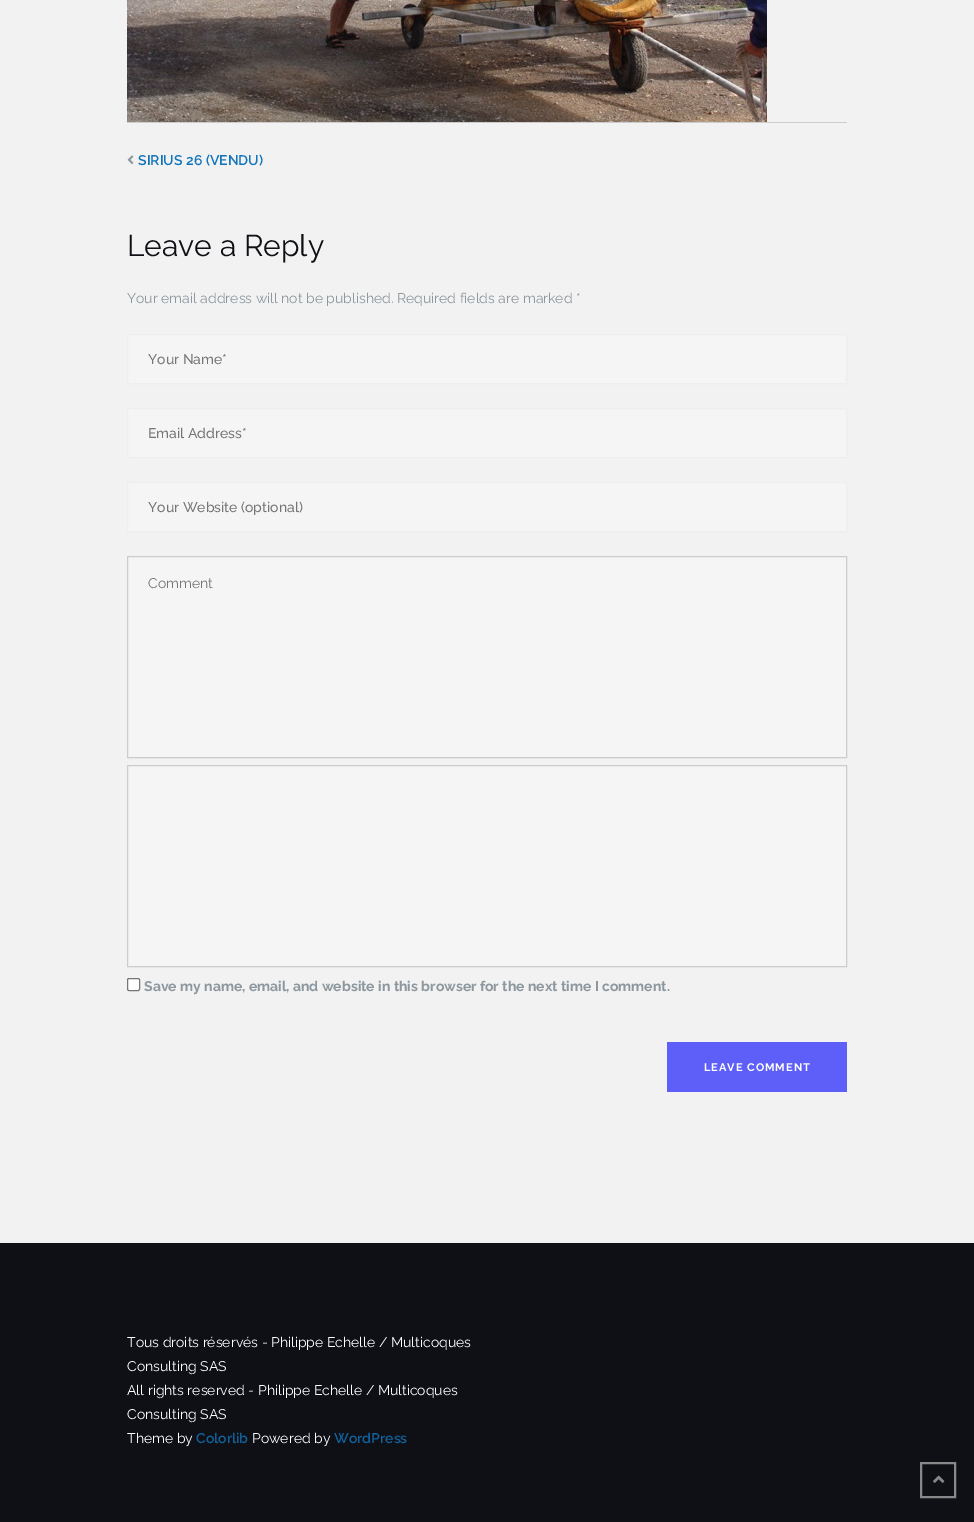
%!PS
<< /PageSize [974 1522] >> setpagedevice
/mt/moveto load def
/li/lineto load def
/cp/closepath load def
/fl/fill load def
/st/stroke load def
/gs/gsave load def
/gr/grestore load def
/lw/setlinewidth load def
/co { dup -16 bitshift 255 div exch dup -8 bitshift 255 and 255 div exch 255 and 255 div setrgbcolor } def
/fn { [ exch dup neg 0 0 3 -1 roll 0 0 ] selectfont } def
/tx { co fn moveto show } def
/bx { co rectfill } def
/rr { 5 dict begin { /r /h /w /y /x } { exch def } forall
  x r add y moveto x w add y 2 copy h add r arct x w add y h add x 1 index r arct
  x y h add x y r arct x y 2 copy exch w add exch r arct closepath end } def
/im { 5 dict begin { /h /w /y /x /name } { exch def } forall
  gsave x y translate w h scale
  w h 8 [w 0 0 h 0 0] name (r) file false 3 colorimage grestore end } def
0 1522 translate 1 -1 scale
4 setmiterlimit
0 0 974 1522 16#F2F2F2 bx
(media/1.raw) 127 0 640 122 im
127 122 720 1 16#CCCCCC bx
(media/2.raw) 127 155 7 9 im
16#F5F5F5 co
127.5 334.5 mt 846.5 334.5 li 846.5 383.5 li 127.5 383.5 li cp gs fl gr
16#EEEEEE co
st
16#F5F5F5 co
127.5 408.5 mt 846.5 408.5 li 846.5 457.5 li 127.5 457.5 li cp gs fl gr
16#EEEEEE co
st
16#F5F5F5 co
127.5 482.5 mt 846.5 482.5 li 846.5 531.5 li 127.5 531.5 li cp gs fl gr
16#EEEEEE co
st
16#F5F5F5 co
127.5 556.5 mt 846.5 556.5 li 846.5 757.5 li 127.5 757.5 li cp gs fl gr
16#CCCCCC co
st
16#F5F5F5 co
127.5 765.5 mt 846.5 765.5 li 846.5 966.5 li 127.5 966.5 li cp gs fl gr
16#CCCCCC co
st
16#FFFFFF co
127.5 978.5 12 12 1.5 rr gs fl gr
16#767676 co
st
667 1042 180 50 16#5E5EF9 bx
0 1243 974 279 16#0E1015 bx
16#87888A co
2 lw
921 1463 34 34 rectstroke
(media/3.raw) 933 1475 12 8 im
(SIRIUS 26 \(VENDU\)) 138 165 /Raleway-SemiBold 14 16#1274BA tx
(Leave a Reply) 127 256 /Raleway-Regular 30 16#0E1015 tx
(Your email address will not be published. Required fields are marked *) 127 303 /Raleway-Regular 14 16#8C979E tx
(Your Name*) 148 364 /Raleway-Medium 14 16#757575 tx
(Email Address*) 148 438 /Raleway-Medium 14 16#757575 tx
(Your Website \(optional\)) 148 512 /Raleway-Medium 14 16#757575 tx
(Comment) 148 588 /Raleway-Regular 14 16#757575 tx
(Save my name, email, and website in this browser for the next time I comment.) 144 991 /Raleway-Bold 14 16#8C979E tx
/Raleway-Bold 11 fn
16#FFFFFF co
704 1071 mt 1 0 (LEAVE COMMENT) ashow
(Tous droits réservés - Philippe Echelle / Multicoques) 127 1347 /Raleway-Regular 14 16#FFFFFF tx
(Consulting SAS) 127 1371 /Raleway-Regular 14 16#FFFFFF tx
(All rights reserved - Philippe Echelle / Multicoques) 127 1395 /Raleway-Regular 14 16#FFFFFF tx
(Consulting SAS) 127 1419 /Raleway-Regular 14 16#FFFFFF tx
(Theme by) 127 1443 /Raleway-Regular 14 16#FFFFFF tx
(Colorlib) 196 1443 /Raleway-SemiBold 14 16#116099 tx
(Powered by) 252 1443 /Raleway-Regular 14 16#FFFFFF tx
(WordPress) 334 1443 /Raleway-SemiBold 14 16#116099 tx
showpage
